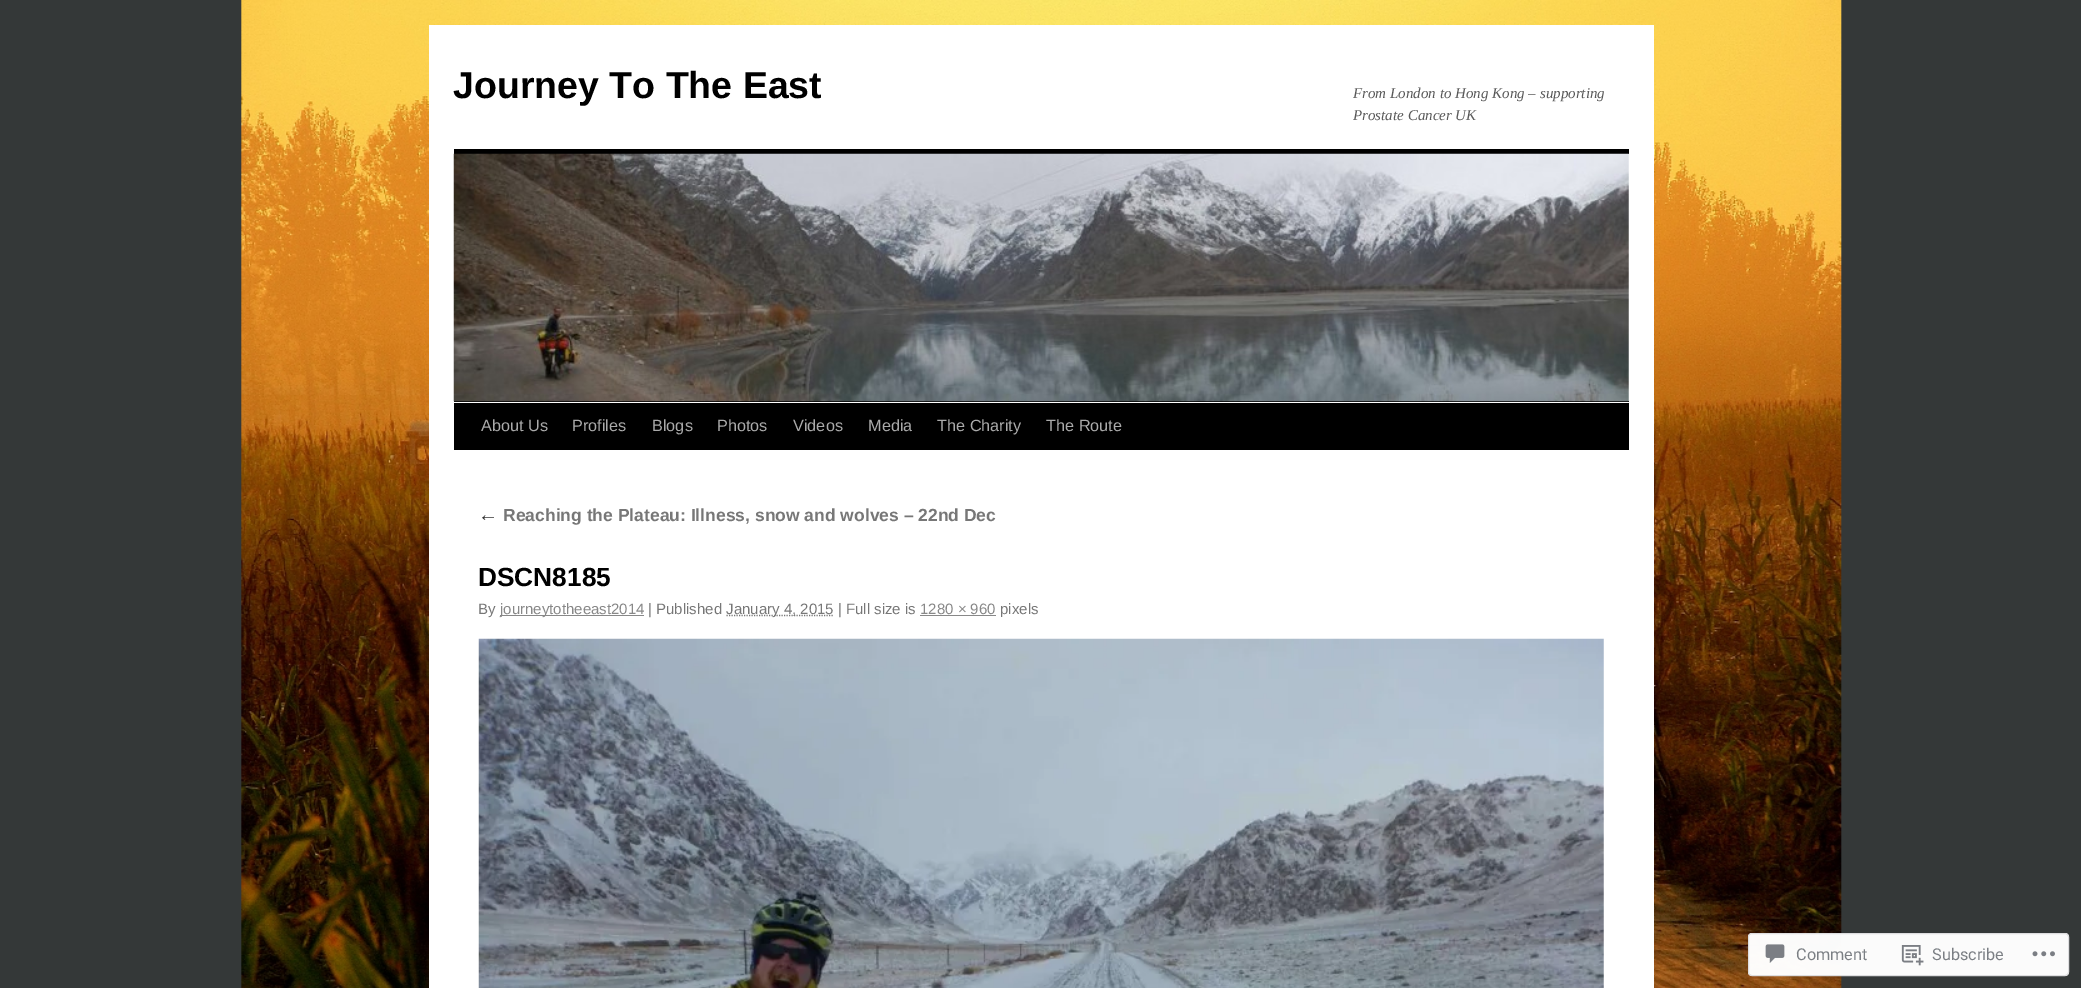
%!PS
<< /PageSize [2081 988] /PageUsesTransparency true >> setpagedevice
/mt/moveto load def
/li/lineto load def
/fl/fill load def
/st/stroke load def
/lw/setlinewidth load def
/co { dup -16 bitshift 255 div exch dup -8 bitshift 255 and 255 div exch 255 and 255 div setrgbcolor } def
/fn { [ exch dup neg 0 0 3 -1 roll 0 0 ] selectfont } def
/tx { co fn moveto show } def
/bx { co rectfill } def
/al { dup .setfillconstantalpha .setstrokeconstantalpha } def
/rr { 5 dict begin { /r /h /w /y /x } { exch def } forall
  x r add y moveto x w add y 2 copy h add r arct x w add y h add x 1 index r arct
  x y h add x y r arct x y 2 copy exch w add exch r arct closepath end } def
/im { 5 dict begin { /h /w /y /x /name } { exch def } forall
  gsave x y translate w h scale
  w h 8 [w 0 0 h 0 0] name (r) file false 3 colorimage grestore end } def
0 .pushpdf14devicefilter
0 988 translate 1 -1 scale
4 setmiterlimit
0 0 2081 988 16#343838 bx
(media/1.raw) 241 0 1601 988 im
429 25 1225 963 16#FFFFFF bx
454 149 1175 5 16#000000 bx
454 401 1175 1 16#000000 bx
(media/2.raw) 453 153 1176 249 im
454 403 1175 47 16#000000 bx
500 615 144 1 16#888888 bx
16#777777 co
1.2 lw
[1.25 1.25] 0 setdash
726.5 615.5 mt 834 615.5 li st
920 615 76 1 16#888888 bx
(media/3.raw) 478 638 1126 350 im
0.98 al
16#FFFFFF co
1748 933 321 43 4 rr fl
16#DCDCDE co
1 lw
[] 0 setdash
1748.5 933.5 320 42 3.5 rr st
1 al
(media/4.raw) 1765 944 20 19 im
(media/5.raw) 1901 945 23 21 im
(media/6.raw) 2032 951 23 6 im
(Journey To The East) 453 98 /LiberationSans-Bold 37.5 16#000000 tx
(From London to Hong Kong – supporting) 1353 98 /LiberationSerif-Italic 15 16#595959 tx
(Prostate Cancer UK) 1353 120 /LiberationSerif-Italic 15 16#595959 tx
(About Us) 481 431 /LiberationSans-Regular 16.25 16#AAAAAA tx
(Profiles) 572 431 /LiberationSans-Regular 16.25 16#AAAAAA tx
(Blogs) 652 431 /LiberationSans-Regular 16.25 16#AAAAAA tx
(Photos) 717 431 /LiberationSans-Regular 16.25 16#AAAAAA tx
(Videos) 793 431 /LiberationSans-Regular 16.25 16#AAAAAA tx
(Media) 868 431 /LiberationSans-Regular 16.25 16#AAAAAA tx
(The Charity) 937 431 /LiberationSans-Regular 16.25 16#AAAAAA tx
(The Route) 1046 431 /LiberationSans-Regular 16.25 16#AAAAAA tx
(←) 478 521 /LiberationSerif-Italic 20 16#333333 tx
(Reaching the Plateau: Illness, snow and wolves – 22nd Dec) 503 521 /LiberationSans-Bold 17.5 16#777777 tx
(DSCN8185) 478 586 /LiberationSans-Bold 26.25 16#000000 tx
(By) 478 614 /LiberationSans-Regular 15 16#777777 tx
(journeytotheeast2014) 500 614 /LiberationSans-Regular 15 16#888888 tx
(| Published) 648 614 /LiberationSans-Regular 15 16#777777 tx
(January 4, 2015 | Full size is) 726 614 /LiberationSans-Regular 15 16#777777 tx
(1280 × 960) 920 614 /LiberationSans-Regular 15 16#888888 tx
(pixels) 1000 614 /LiberationSans-Regular 15 16#777777 tx
(Comment) 1796 960 /Roboto-Regular 16.25 16#7B7F84 tx
(Subscribe) 1932 960 /Roboto-Regular 16.25 16#7B7F84 tx
.poppdf14devicefilter showpage
